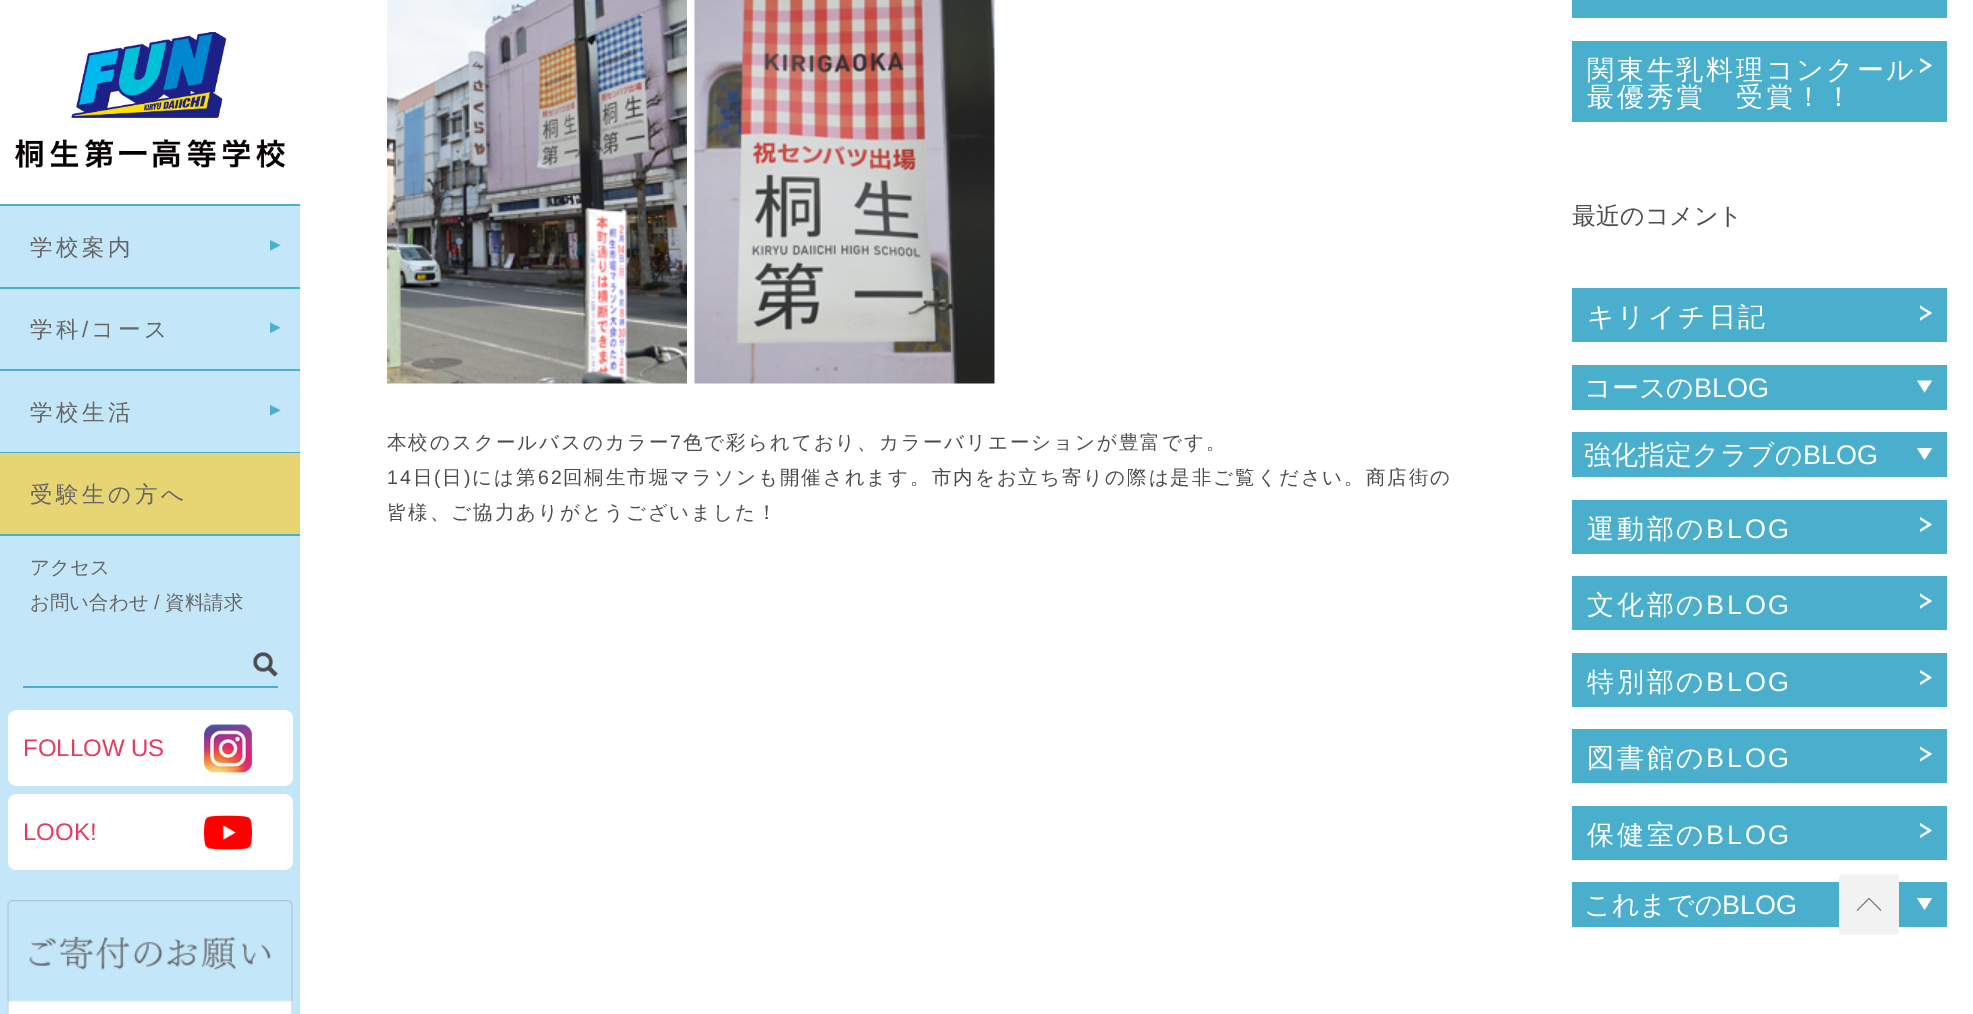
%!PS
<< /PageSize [1973 1014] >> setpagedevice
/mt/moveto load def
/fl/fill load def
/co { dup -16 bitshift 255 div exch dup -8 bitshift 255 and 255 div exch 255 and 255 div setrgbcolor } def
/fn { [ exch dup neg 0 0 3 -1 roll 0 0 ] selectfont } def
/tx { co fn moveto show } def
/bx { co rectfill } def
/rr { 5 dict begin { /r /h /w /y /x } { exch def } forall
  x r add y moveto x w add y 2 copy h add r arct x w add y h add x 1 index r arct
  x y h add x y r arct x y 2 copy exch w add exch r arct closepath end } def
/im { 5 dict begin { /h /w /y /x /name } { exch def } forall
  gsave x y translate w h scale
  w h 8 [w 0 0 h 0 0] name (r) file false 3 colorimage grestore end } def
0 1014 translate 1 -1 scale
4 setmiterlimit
0 0 1973 1014 16#FFFFFF bx
0 206 300 808 16#C3E6F9 bx
(media/1.raw) 15 32 270 136 im
0 204 300 2 16#4AAFCC bx
(media/2.raw) 270 240 11 11 im
0 287 300 2 16#4AAFCC bx
(media/3.raw) 270 322 11 11 im
0 369 300 2 16#4AAFCC bx
(media/2.raw) 270 405 11 11 im
0 452 300 1 16#4AAFCC bx
0 453 300 81 16#E7D473 bx
0 534 300 2 16#4AAFCC bx
23 686 255 2 16#4AAFCC bx
(media/4.raw) 253 652 25 25 im
16#FFFFFF co
8 710 285 76 9 rr fl
(media/5.raw) 204 724 48 49 im
8 794 285 76 9 rr fl
(media/6.raw) 204 815 48 35 im
(media/7.raw) 7 900 286 114 im
(media/8.raw) 387 0 300 384 im
(media/9.raw) 694 0 301 384 im
1572 0 375 18 16#4AAFCC bx
1572 41 375 81 16#4AAFCC bx
(media/10.raw) 1920 58 12 15 im
1572 288 375 54 16#4AAFCC bx
(media/11.raw) 1920 305 12 16 im
1572 365 375 45 16#4AAFCC bx
(media/12.raw) 1917 380 15 13 im
1572 432 375 45 16#4AAFCC bx
(media/13.raw) 1917 448 15 12 im
1572 500 375 54 16#4AAFCC bx
(media/10.raw) 1920 517 12 15 im
1572 576 375 54 16#4AAFCC bx
(media/11.raw) 1920 593 12 16 im
1572 653 375 54 16#4AAFCC bx
(media/10.raw) 1920 670 12 15 im
1572 729 375 54 16#4AAFCC bx
(media/11.raw) 1920 746 12 16 im
1572 806 375 54 16#4AAFCC bx
(media/10.raw) 1920 823 12 15 im
1572 882 375 45 16#4AAFCC bx
(media/13.raw) 1917 898 15 12 im
(media/14.raw) 1839 874 60 61 im
/WenQuanYiZenHei-Medium 22.5 fn
16#666666 co
30 255 mt 3.5 0 (学校案内) ashow
30 337 mt 3.5 0 (学科) ashow
/LiberationSans-Regular 22.5 fn
82 337 mt 3.5 0 (/) ashow
/WenQuanYiZenHei-Medium 22.5 fn
91 337 mt 3.5 0 (コース) ashow
30 420 mt 3.5 0 (学校生活) ashow
30 502 mt 3.5 0 (受験生の方へ) ashow
(アクセス) 30 574 /WenQuanYiZenHei-Medium 19.5 16#666666 tx
(お問い合わせ) 30 609 /WenQuanYiZenHei-Medium 19.5 16#666666 tx
(/) 154 609 /LiberationSans-Regular 19.5 16#666666 tx
(資料請求) 165 609 /WenQuanYiZenHei-Medium 19.5 16#666666 tx
(FOLLOW US) 23 756 /LiberationSans-Regular 24 16#E33D5F tx
(LOOK!) 23 840 /LiberationSans-Regular 24 16#E33D5F tx
/WenQuanYiZenHei-Medium 19.5 fn
16#4D4D4D co
387 449 mt 1.95 0 (本校のスクールバスのカラー) ashow
/LiberationSans-Regular 19.5 fn
670 449 mt 1.95 0 (7) ashow
/WenQuanYiZenHei-Medium 19.5 fn
683 449 mt 1.95 0 (色で彩られており、カラーバリエーションが豊富です。) ashow
/LiberationSans-Regular 19.5 fn
387 484 mt 1.95 0 (14) ashow
/WenQuanYiZenHei-Medium 19.5 fn
413 484 mt 1.95 0 (日) ashow
/LiberationSans-Regular 19.5 fn
434 484 mt 1.95 0 (\() ashow
/WenQuanYiZenHei-Medium 19.5 fn
442 484 mt 1.95 0 (日) ashow
/LiberationSans-Regular 19.5 fn
464 484 mt 1.95 0 (\)) ashow
/WenQuanYiZenHei-Medium 19.5 fn
472 484 mt 1.95 0 (には第) ashow
/LiberationSans-Regular 19.5 fn
538 484 mt 1.95 0 (62) ashow
/WenQuanYiZenHei-Medium 19.5 fn
563 484 mt 1.95 0 (回桐生市堀マラソンも開催されます。市内をお立ち寄りの際は是非ご覧ください。商店街の) ashow
387 519 mt 1.95 0 (皆様、ご協力ありがとうございました！) ashow
/WenQuanYiZenHei-Medium 27 fn
16#FFFFFF co
1587 79 mt 2.75 0 (関東牛乳料理コンクール) ashow
1587 106 mt 2.75 0 (最優秀賞　受賞！！) ashow
(最近のコメント) 1572 224 /WenQuanYiZenHei-Medium 24 16#4D4D4D tx
/WenQuanYiZenHei-Medium 27 fn
16#FFFFFF co
1587 326 mt 2.75 0 (キリイチ日記) ashow
(コースの) 1584 397 /WenQuanYiZenHei-Medium 27 16#FFFFFF tx
(BLOG) 1694 397 /LiberationSans-Regular 27 16#FFFFFF tx
(強化指定クラブの) 1584 464 /WenQuanYiZenHei-Medium 27 16#FFFFFF tx
(BLOG) 1803 464 /LiberationSans-Regular 27 16#FFFFFF tx
/WenQuanYiZenHei-Medium 27 fn
1587 538 mt 2.75 0 (運動部の) ashow
/LiberationSans-Regular 27 fn
1706 538 mt 2.75 0 (BLOG) ashow
/WenQuanYiZenHei-Medium 27 fn
1587 614 mt 2.75 0 (文化部の) ashow
/LiberationSans-Regular 27 fn
1706 614 mt 2.75 0 (BLOG) ashow
/WenQuanYiZenHei-Medium 27 fn
1587 691 mt 2.75 0 (特別部の) ashow
/LiberationSans-Regular 27 fn
1706 691 mt 2.75 0 (BLOG) ashow
/WenQuanYiZenHei-Medium 27 fn
1587 767 mt 2.75 0 (図書館の) ashow
/LiberationSans-Regular 27 fn
1706 767 mt 2.75 0 (BLOG) ashow
/WenQuanYiZenHei-Medium 27 fn
1587 844 mt 2.75 0 (保健室の) ashow
/LiberationSans-Regular 27 fn
1706 844 mt 2.75 0 (BLOG) ashow
(これまでの) 1584 914 /WenQuanYiZenHei-Medium 27 16#FFFFFF tx
(BLOG) 1722 914 /LiberationSans-Regular 27 16#FFFFFF tx
showpage
